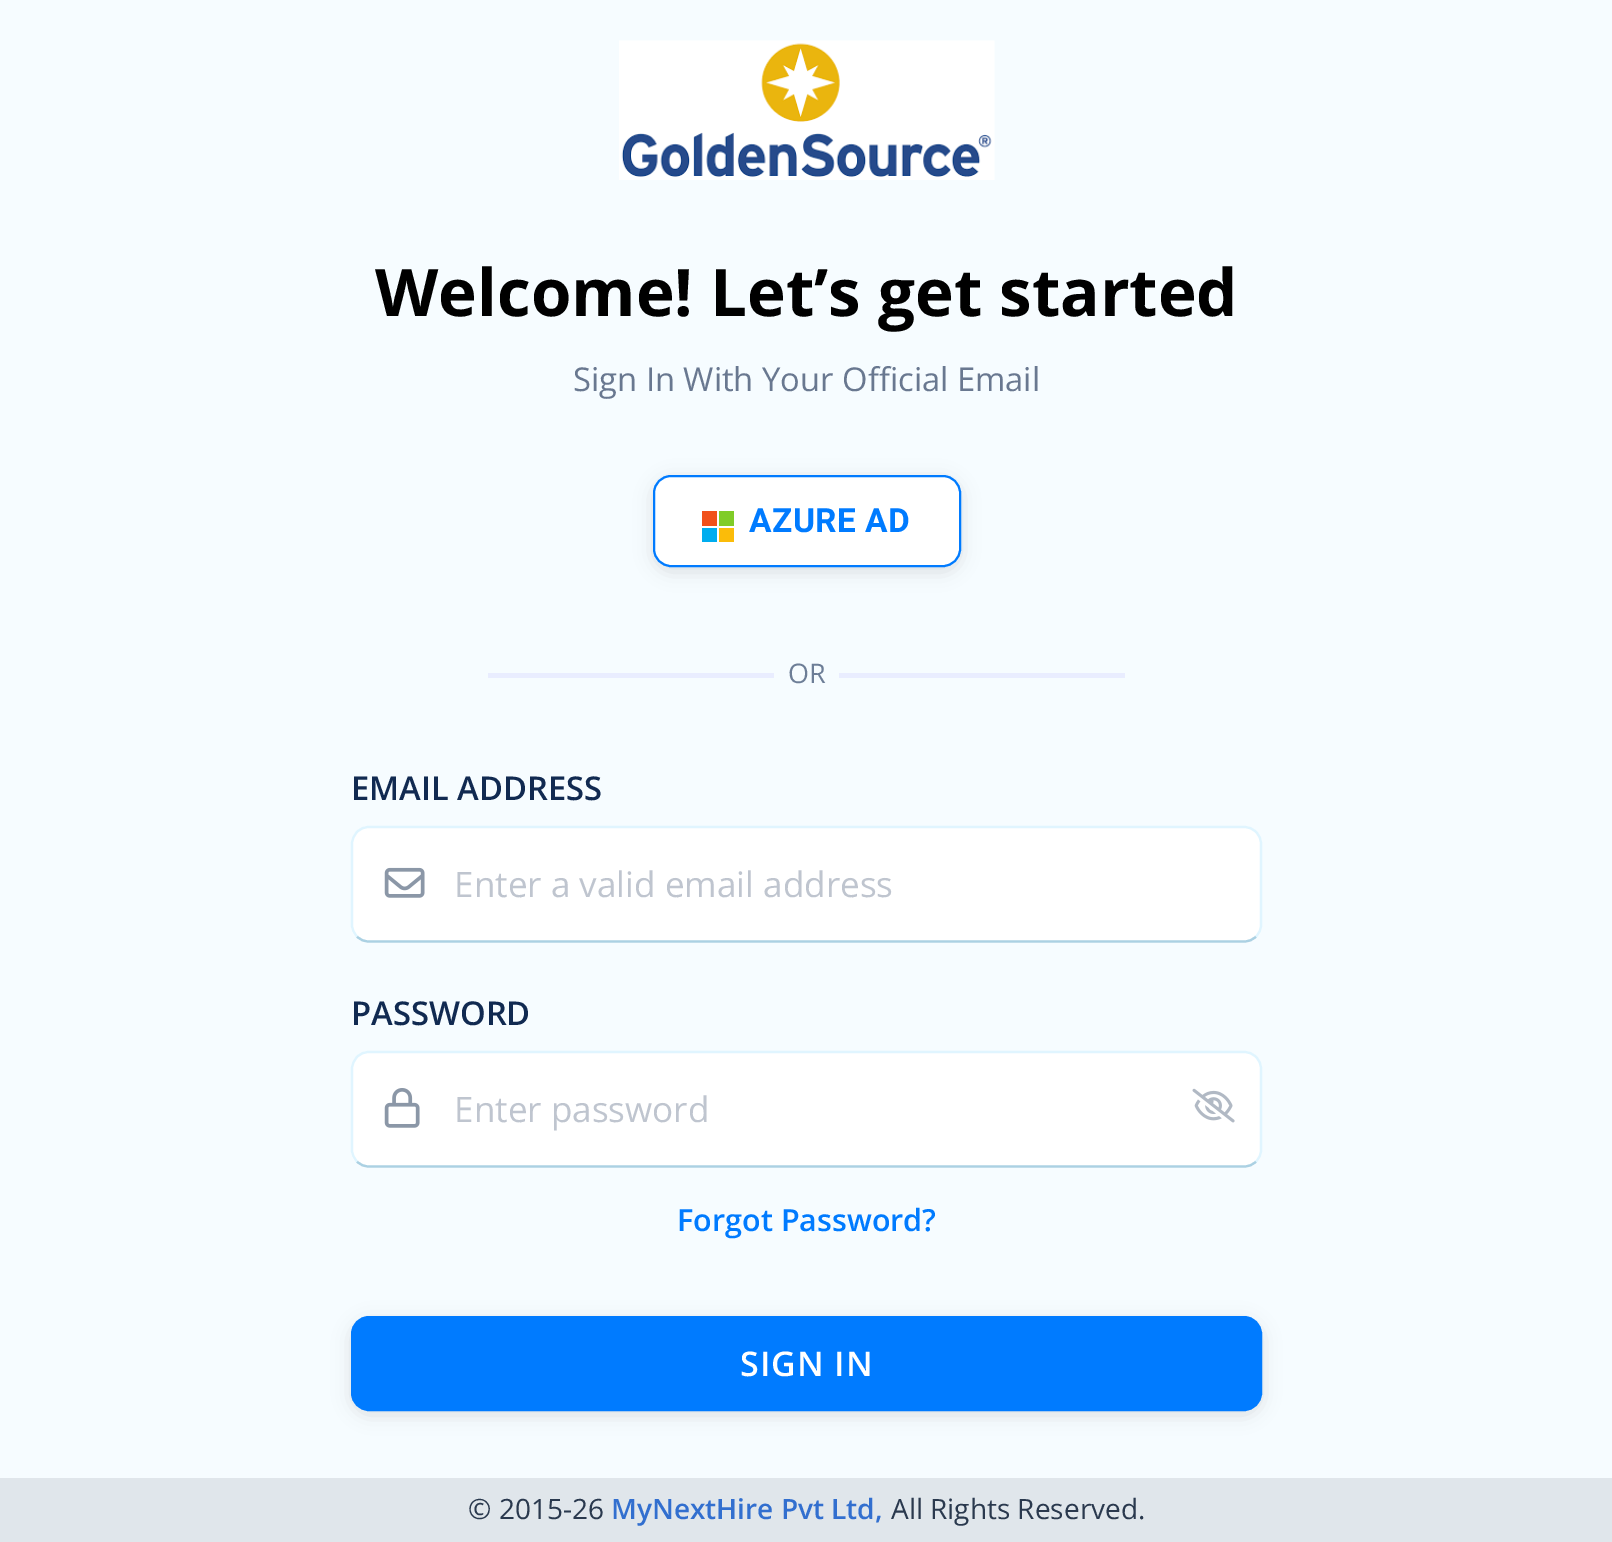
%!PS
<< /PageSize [1612 1542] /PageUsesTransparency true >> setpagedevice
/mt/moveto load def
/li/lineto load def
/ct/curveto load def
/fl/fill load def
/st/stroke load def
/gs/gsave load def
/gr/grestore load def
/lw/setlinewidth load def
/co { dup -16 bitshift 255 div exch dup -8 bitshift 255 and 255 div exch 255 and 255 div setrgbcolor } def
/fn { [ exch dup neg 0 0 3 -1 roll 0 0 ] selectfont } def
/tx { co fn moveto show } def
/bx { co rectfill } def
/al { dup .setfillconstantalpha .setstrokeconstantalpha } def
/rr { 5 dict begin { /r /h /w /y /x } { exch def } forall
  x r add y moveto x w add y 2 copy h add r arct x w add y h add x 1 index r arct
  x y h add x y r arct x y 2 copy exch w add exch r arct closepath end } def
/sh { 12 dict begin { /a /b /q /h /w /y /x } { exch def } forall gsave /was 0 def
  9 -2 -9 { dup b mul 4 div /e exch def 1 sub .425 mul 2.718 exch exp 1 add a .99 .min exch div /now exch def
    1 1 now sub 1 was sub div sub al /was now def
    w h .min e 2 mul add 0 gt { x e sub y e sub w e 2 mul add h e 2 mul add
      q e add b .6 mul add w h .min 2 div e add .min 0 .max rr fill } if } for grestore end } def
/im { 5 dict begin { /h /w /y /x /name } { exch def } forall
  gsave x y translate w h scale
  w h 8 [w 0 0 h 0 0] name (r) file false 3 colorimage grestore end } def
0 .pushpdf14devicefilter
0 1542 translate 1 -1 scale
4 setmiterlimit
0 0 1612 1542 16#F6FCFF bx
(media/1.raw) 619 40 376 140 im
16#636363 co
653 479 308 93 18 9 .2 sh
16#FFFFFF co
654 476 306 90 17 rr gs fl gr
16#007BFF co
2 lw
st
702 511 15 15 16#F1511B bx
719 511 15 15 16#80CC28 bx
702 528 15 14 16#00ADEF bx
719 528 15 14 16#FBBC09 bx
488 673 286 5 16#E9EDFF bx
839 673 286 5 16#E9EDFF bx
16#FFFFFF co
351 826 911 117 18 rr fl
16#ABD1E3 co
2.2 lw
1256 936.5 mt 1253 940 1248.5 941.5 1244 941.5 ct 369 941.5 li 364.5 941.5 360 940 357 936.5 ct st
16#E0F5FF co
357 936.5 mt 354 933.5 352 929 352 925 ct 352 844 li 352 839.5 354 835 357 832 ct 360 828.5 364.5 827 369 827 ct 1244 827 li 1248.5 827 1253 828.5 1256 832 ct 1259.5 835 1261 839.5 1261 844 ct 1261 925 li 1261 929 1259.5 933.5 1256 936.5 ct st
(media/2.raw) 384 867 41 31 im
16#FFFFFF co
351 1051 911 117 18 rr fl
16#ABD1E3 co
1256 1161.5 mt 1253 1165 1248.5 1166.5 1244 1166.5 ct 369 1166.5 li 364.5 1166.5 360 1165 357 1161.5 ct st
16#E0F5FF co
357 1161.5 mt 354 1158.5 352 1154 352 1150 ct 352 1069 li 352 1064.5 354 1060 357 1057 ct 360 1053.5 364.5 1052 369 1052 ct 1244 1052 li 1248.5 1052 1253 1053.5 1256 1057 ct 1259.5 1060 1261 1064.5 1261 1069 ct 1261 1150 li 1261 1154 1259.5 1158.5 1256 1161.5 ct st
(media/3.raw) 384 1088 36 40 im
(media/4.raw) 1192 1088 43 35 im
16#636363 co
351 1321 911 94 18 9 .2 sh
16#007BFF co
352 1317 909 93 17 rr gs fl gr
2 lw
st
0 1478 1612 64 16#E0E6EB bx
(Welcome! Let’s get started) 375 316 /OpenSans-Bold 65.5 16#000000 tx
(Sign In With Your Official Email) 573 391 /OpenSans-Regular 32.75 16#697890 tx
/Roboto-Bold 33.5 fn
16#007BFF co
749 532 mt .5 0 (AZURE AD) ashow
(OR) 788 683 /OpenSans-Regular 27 16#6D7E97 tx
(EMAIL ADDRESS) 351 800 /OpenSans-SemiBold 32.75 16#112A51 tx
(Enter a valid email address) 454 897 /OpenSans-Regular 35.1 16#BFC5CF tx
(PASSWORD) 351 1025 /OpenSans-SemiBold 32.75 16#112A51 tx
(Enter password) 454 1122 /OpenSans-Regular 35.1 16#BFC5CF tx
(Forgot Password?) 677 1231 /OpenSans-SemiBold 30.5 16#007BFF tx
/OpenSans-SemiBold 34 fn
16#FFFFFF co
740 1376 mt 1 0 (SIGN IN) ashow
(© 2015-26) 468 1519 /OpenSans-Regular 28 16#2A394E tx
(MyNextHire Pvt Ltd,) 611 1519 /OpenSans-SemiBold 28 16#326FCF tx
(All Rights Reserved.) 891 1519 /OpenSans-Regular 28 16#2A394E tx
.poppdf14devicefilter showpage
